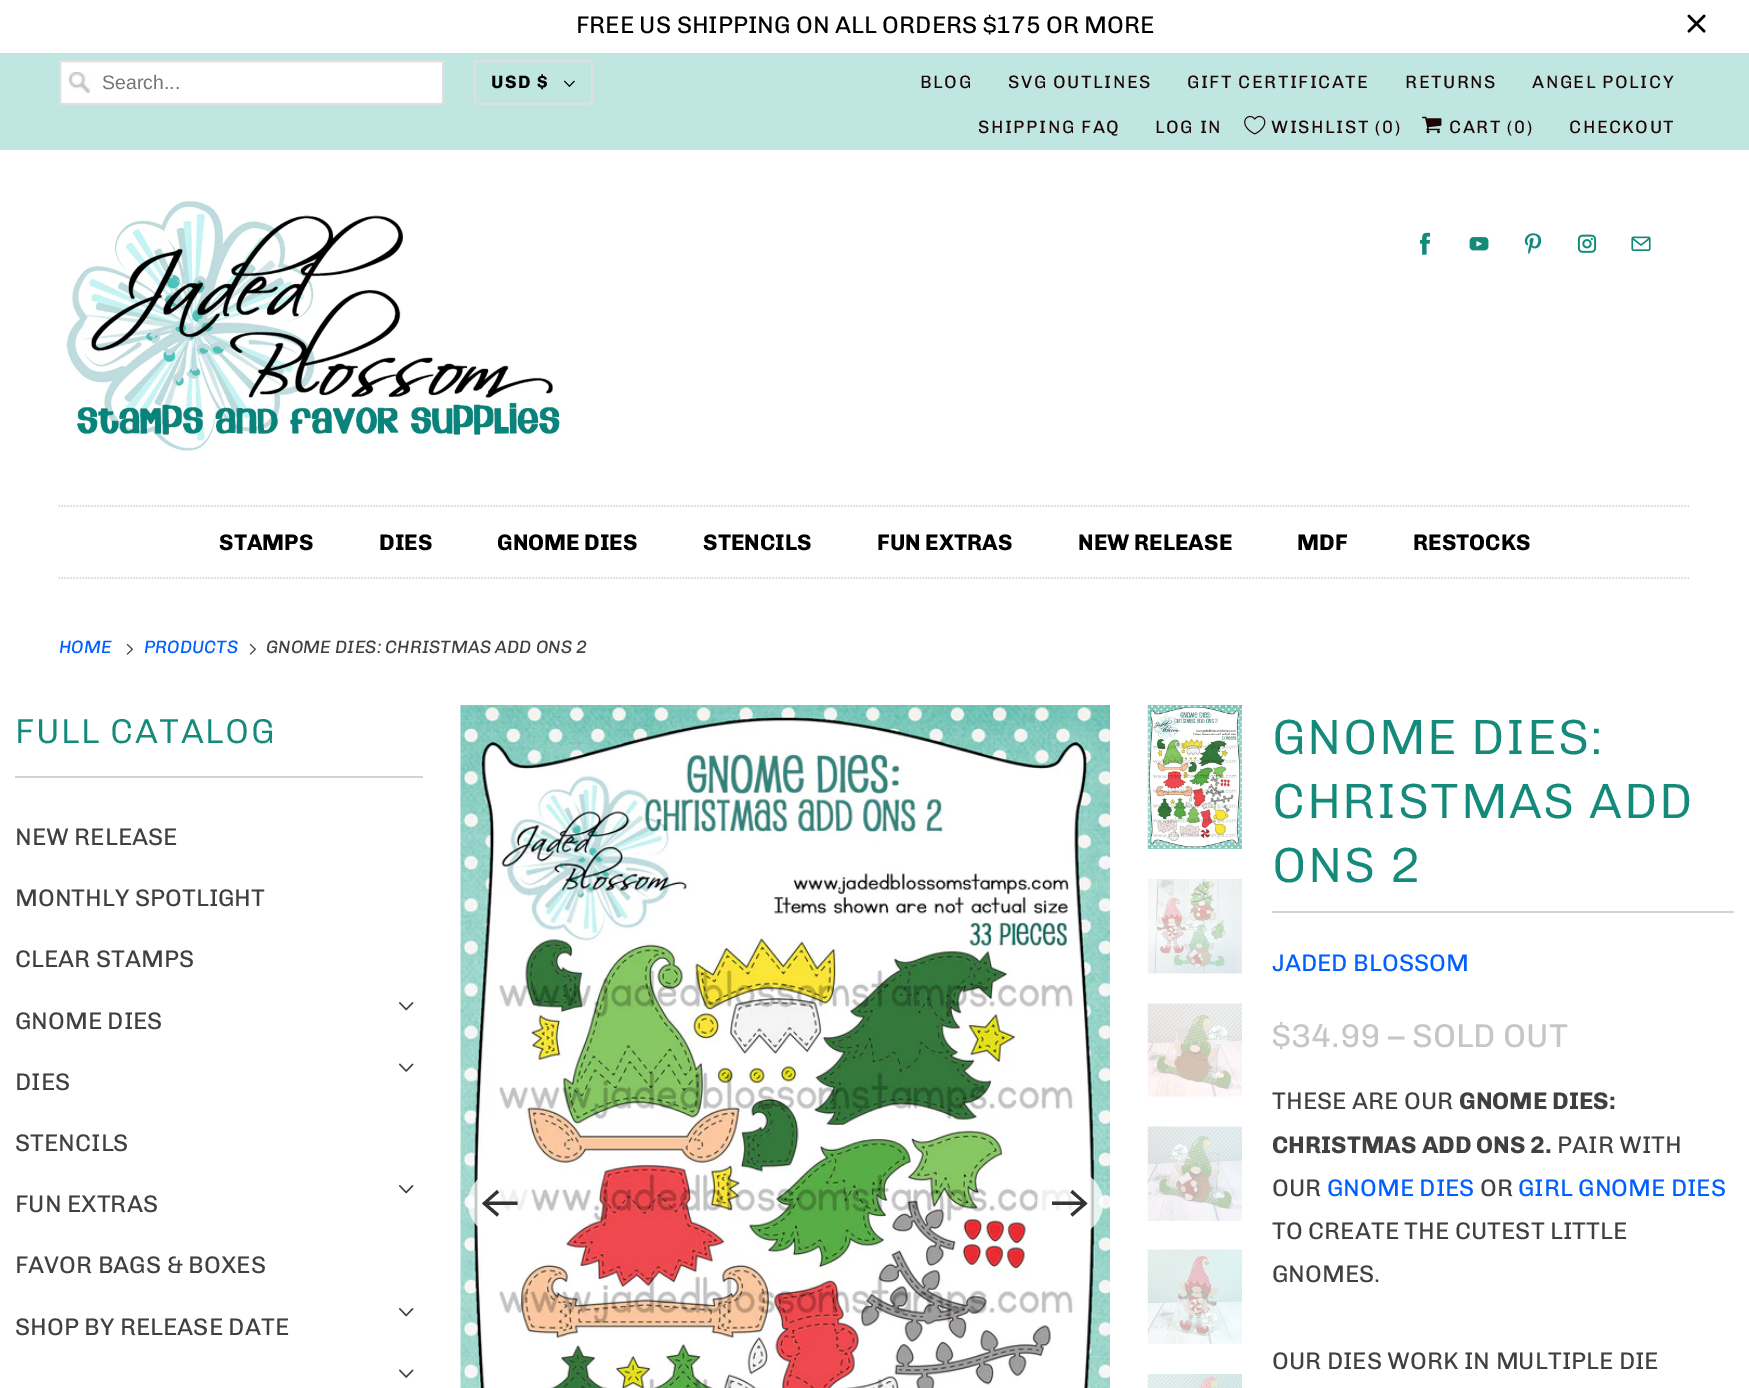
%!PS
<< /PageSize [1749 1388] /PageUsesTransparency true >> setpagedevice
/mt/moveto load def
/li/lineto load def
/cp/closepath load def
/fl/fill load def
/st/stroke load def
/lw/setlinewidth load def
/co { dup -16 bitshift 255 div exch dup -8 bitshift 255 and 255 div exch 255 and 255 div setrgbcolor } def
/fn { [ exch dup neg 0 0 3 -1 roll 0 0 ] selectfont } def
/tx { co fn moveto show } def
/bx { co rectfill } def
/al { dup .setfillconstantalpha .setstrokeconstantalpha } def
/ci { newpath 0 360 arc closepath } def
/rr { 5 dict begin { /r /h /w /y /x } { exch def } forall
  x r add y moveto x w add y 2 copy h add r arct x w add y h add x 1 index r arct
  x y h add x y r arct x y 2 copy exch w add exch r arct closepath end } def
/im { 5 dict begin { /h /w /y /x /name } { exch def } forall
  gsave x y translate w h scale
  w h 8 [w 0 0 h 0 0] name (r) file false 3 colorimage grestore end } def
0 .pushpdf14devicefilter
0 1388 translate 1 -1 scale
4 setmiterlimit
0 0 1749 1388 16#FFFFFF bx
(media/1.raw) 1687 14 19 19 im
0 53 1749 97 16#BFE6E0 bx
16#FFFFFF co
59 60 385 45 3 rr fl
(media/2.raw) 69 72 21 21 im
16#DFDFDF co
2 lw
60 61 383 43 2 rr st
475 61 117 43 2 rr st
(media/3.raw) 564 80 11 7 im
(media/4.raw) 1244 115 22 20 im
(media/5.raw) 1422 116 20 18 im
(media/6.raw) 66 201 497 250 im
(media/7.raw) 1419 232 12 23 im
(media/8.raw) 1469 237 20 14 im
(media/9.raw) 1524 233 18 22 im
(media/10.raw) 1577 234 20 19 im
(media/11.raw) 1631 236 20 15 im
16#D3D3D3 co
1.5 lw
[1.5 1.5] 0 setdash
58.5 506 mt 1690.5 506 li st
58.5 578 mt 1690.5 578 li st
(media/12.raw) 126 643 7 12 im
(media/12.raw) 249 643 7 12 im
15 776 408 2 16#D3D3D3 bx
(media/13.raw) 399 1002 15 9 im
(media/14.raw) 399 1063 15 9 im
(media/13.raw) 399 1185 15 9 im
(media/13.raw) 399 1308 15 9 im
(media/14.raw) 399 1369 15 9 im
(media/15.raw) 460 705 650 683 im
0.75 al
16#FFFFFF co
501 1203 33 ci fl
1 al
16#333333 co
517.5 1201.5 mt 488.5 1201.5 li 499 1192.5 li 497 1190 li 482 1203.5 li 497 1216.5 li 499 1214 li 488.5 1205 li 517.5 1205 li cp fl
0.75 al
16#FFFFFF co
1070 1203 33 ci fl
1 al
16#333333 co
1052 1205 mt 1081 1205 li 1070.5 1214 li 1072.5 1216.5 li 1087.5 1203.5 li 1072.5 1190 li 1070.5 1192.5 li 1081 1201.5 li 1052 1201.5 li cp fl
(media/16.raw) 1147 705 95 144 im
(media/17.raw) 1147 879 95 95 im
(media/18.raw) 1147 1003 95 94 im
(media/19.raw) 1147 1126 95 95 im
(media/20.raw) 1147 1249 95 95 im
(media/21.raw) 1147 1374 95 14 im
1272 911 462 2 16#D3D3D3 bx
(FREE US SHIPPING ON ALL ORDERS $175 OR MORE) 576 33 /Chivo-Regular 24 16#000000 tx
(Search...) 102 89 /LiberationSans-Regular 19.5 16#757575 tx
/Chivo-Bold 18 fn
16#000000 co
491 88 mt 1.5 0 (USD $) ashow
/Chivo-Regular 18 fn
16#1E0505 co
920 88 mt 1.5 0 (BLOG) ashow
1008 88 mt 1.5 0 (SVG OUTLINES) ashow
1187 88 mt 1.5 0 (GIFT CERTIFICATE) ashow
1405 88 mt 1.5 0 (RETURNS) ashow
1532 88 mt 1.5 0 (ANGEL POLICY) ashow
978 133 mt 1.5 0 (SHIPPING FAQ) ashow
1155 133 mt 1.5 0 (LOG IN) ashow
1271 133 mt 1.5 0 (WISHLIST \(0\)) ashow
1449 133 mt 1.5 0 (CART \(0\)) ashow
1569 133 mt 1.5 0 (CHECKOUT) ashow
(STAMPS) 219 550 /Chivo-Bold 22.5 16#000000 tx
(DIES) 379 550 /Chivo-Bold 22.5 16#000000 tx
(GNOME DIES) 497 550 /Chivo-Bold 22.5 16#000000 tx
(STENCILS) 703 550 /Chivo-Bold 22.5 16#000000 tx
(FUN EXTRAS) 877 550 /Chivo-Bold 22.5 16#000000 tx
(NEW RELEASE) 1078 550 /Chivo-Bold 22.5 16#000000 tx
(MDF) 1297 550 /Chivo-Bold 22.5 16#000000 tx
(RESTOCKS) 1413 550 /Chivo-Bold 22.5 16#000000 tx
(HOME) 59 653 /Chivo-Italic 18 16#005FFF tx
(PRODUCTS) 144 653 /Chivo-Italic 18 16#005FFF tx
(GNOME DIES: CHRISTMAS ADD ONS 2) 266 653 /Chivo-Italic 18 16#404040 tx
/Chivo-Light 34.5 fn
16#148B7A co
15 743 mt 1.5 0 (FULL CATALOG) ashow
(NEW RELEASE) 15 845 /Chivo-Regular 24 16#404040 tx
(MONTHLY SPOTLIGHT) 15 906 /Chivo-Regular 24 16#404040 tx
(CLEAR STAMPS) 15 967 /Chivo-Regular 24 16#404040 tx
(GNOME DIES) 15 1029 /Chivo-Regular 24 16#404040 tx
(DIES) 15 1090 /Chivo-Regular 24 16#404040 tx
(STENCILS) 15 1151 /Chivo-Regular 24 16#404040 tx
(FUN EXTRAS) 15 1212 /Chivo-Regular 24 16#404040 tx
(FAVOR BAGS & BOXES) 15 1273 /Chivo-Regular 24 16#404040 tx
(SHOP BY RELEASE DATE) 15 1335 /Chivo-Regular 24 16#404040 tx
/Chivo-Light 49.5 fn
16#148B7A co
1272 754 mt 1.5 0 (GNOME DIES:) ashow
1272 818 mt 1.5 0 (CHRISTMAS ADD) ashow
1272 882 mt 1.5 0 (ONS 2) ashow
(JADED BLOSSOM) 1272 971 /Chivo-Regular 24 16#005FFF tx
($34.99 – SOLD OUT) 1272 1047 /Chivo-Regular 33 16#C6C6C6 tx
(THESE ARE OUR) 1272 1109 /Chivo-Regular 24 16#404040 tx
(GNOME DIES:) 1459 1109 /Chivo-Bold 24 16#404040 tx
(CHRISTMAS ADD ONS 2.) 1272 1153 /Chivo-Bold 24 16#404040 tx
(PAIR WITH) 1557 1153 /Chivo-Regular 24 16#404040 tx
(OUR) 1272 1196 /Chivo-Regular 24 16#404040 tx
(GNOME DIES) 1327 1196 /Chivo-Regular 24 16#005FFF tx
(OR) 1480 1196 /Chivo-Regular 24 16#404040 tx
(GIRL GNOME DIES) 1518 1196 /Chivo-Regular 24 16#005FFF tx
(TO CREATE THE CUTEST LITTLE) 1272 1239 /Chivo-Regular 24 16#404040 tx
(GNOMES.) 1272 1282 /Chivo-Regular 24 16#404040 tx
(OUR DIES WORK IN MULTIPLE DIE) 1272 1369 /Chivo-Regular 24 16#404040 tx
.poppdf14devicefilter showpage
